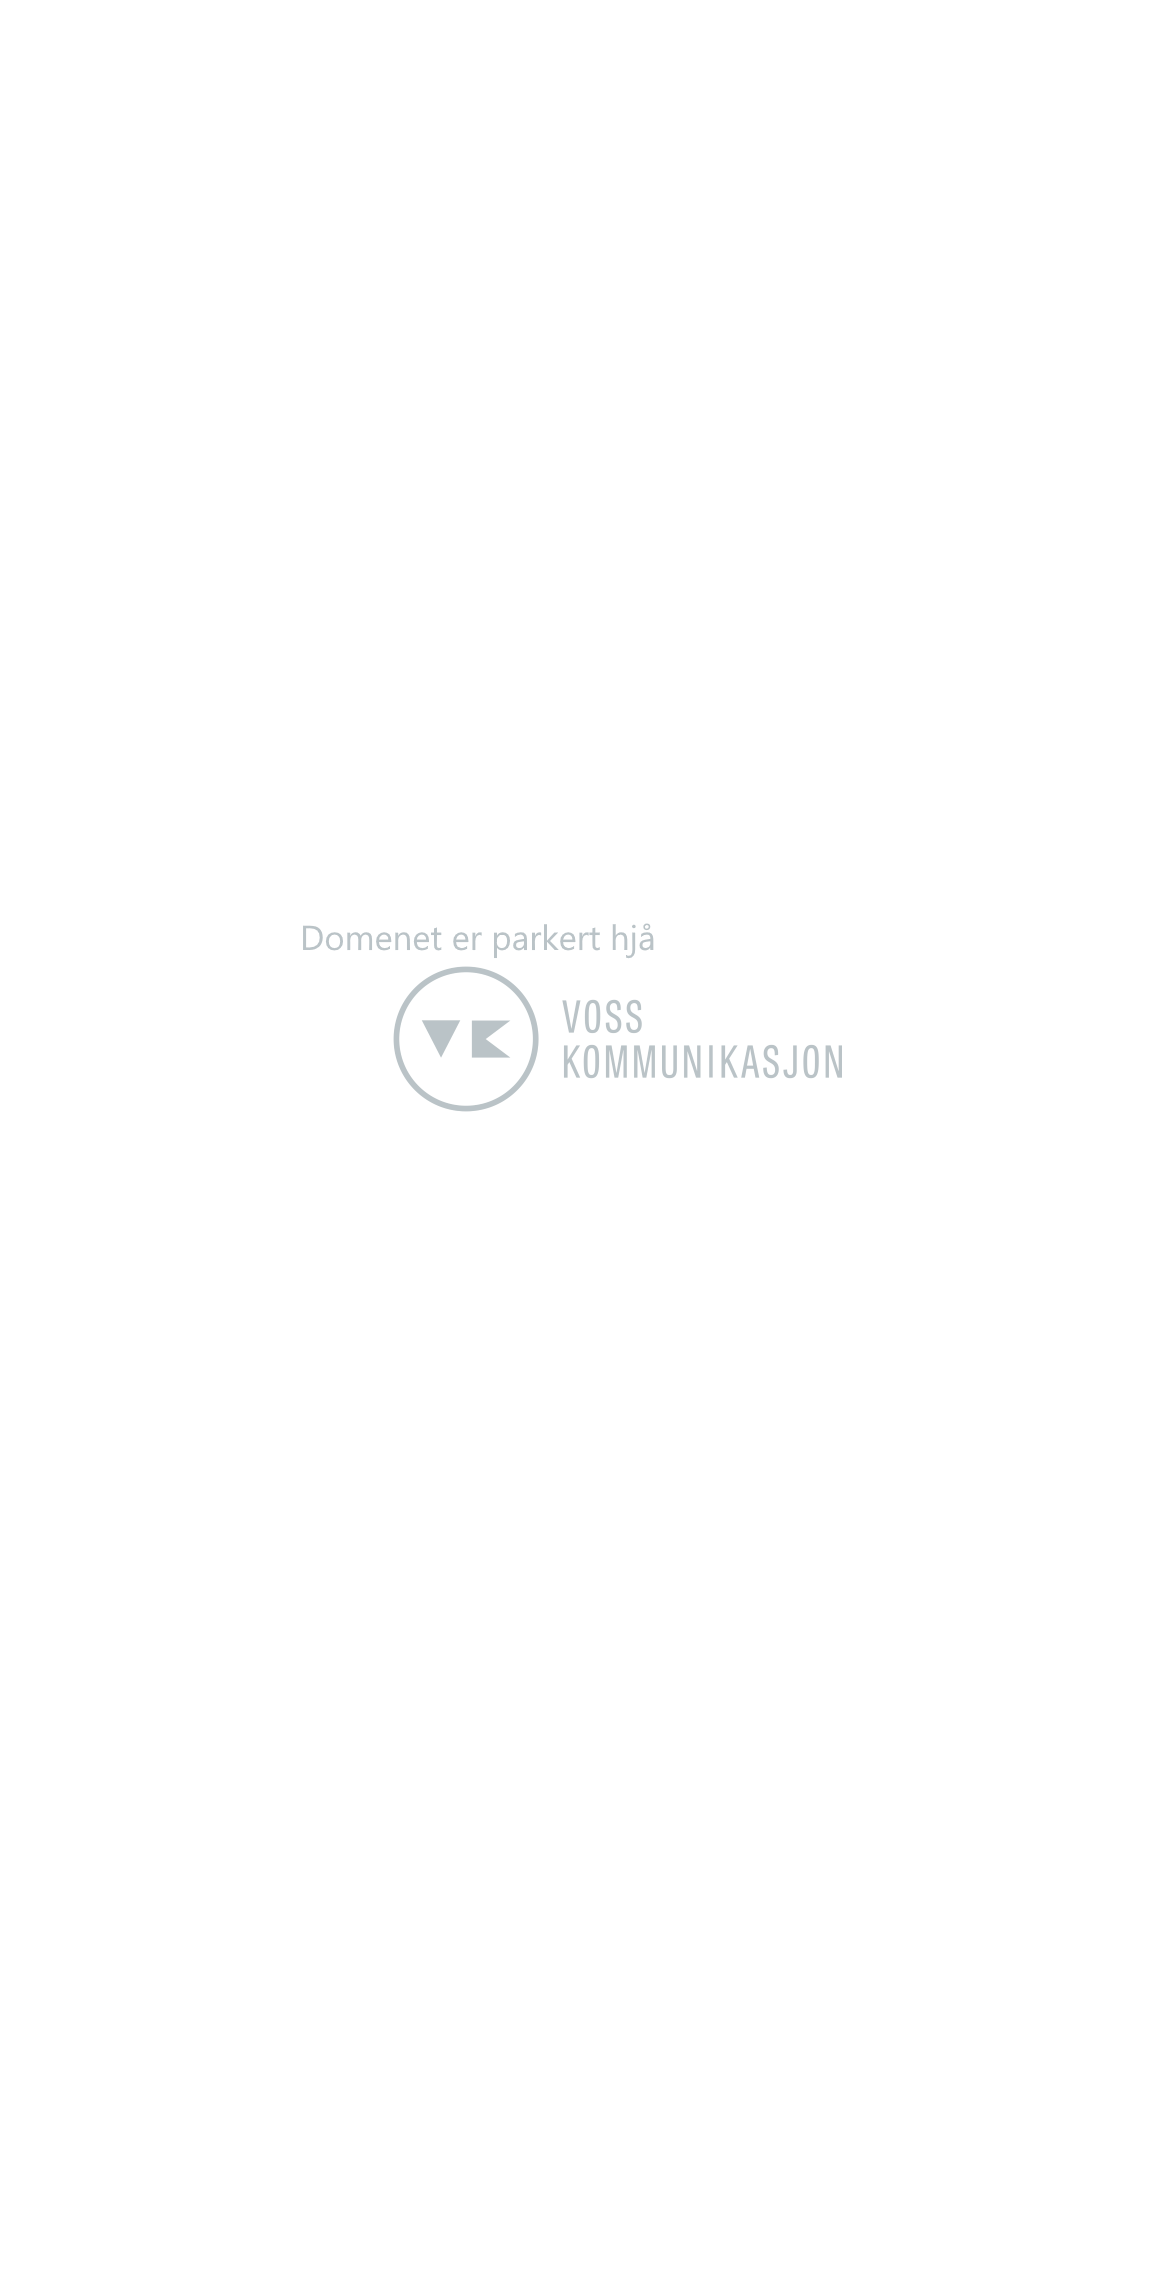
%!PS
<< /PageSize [1151 2293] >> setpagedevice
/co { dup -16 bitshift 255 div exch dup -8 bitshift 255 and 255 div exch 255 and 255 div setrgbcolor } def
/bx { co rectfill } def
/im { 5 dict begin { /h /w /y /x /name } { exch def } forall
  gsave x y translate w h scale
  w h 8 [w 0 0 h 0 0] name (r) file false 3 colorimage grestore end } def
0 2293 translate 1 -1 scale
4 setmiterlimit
0 0 1151 2293 16#FFFFFF bx
(media/1.raw) 303 923 539 189 im
showpage
